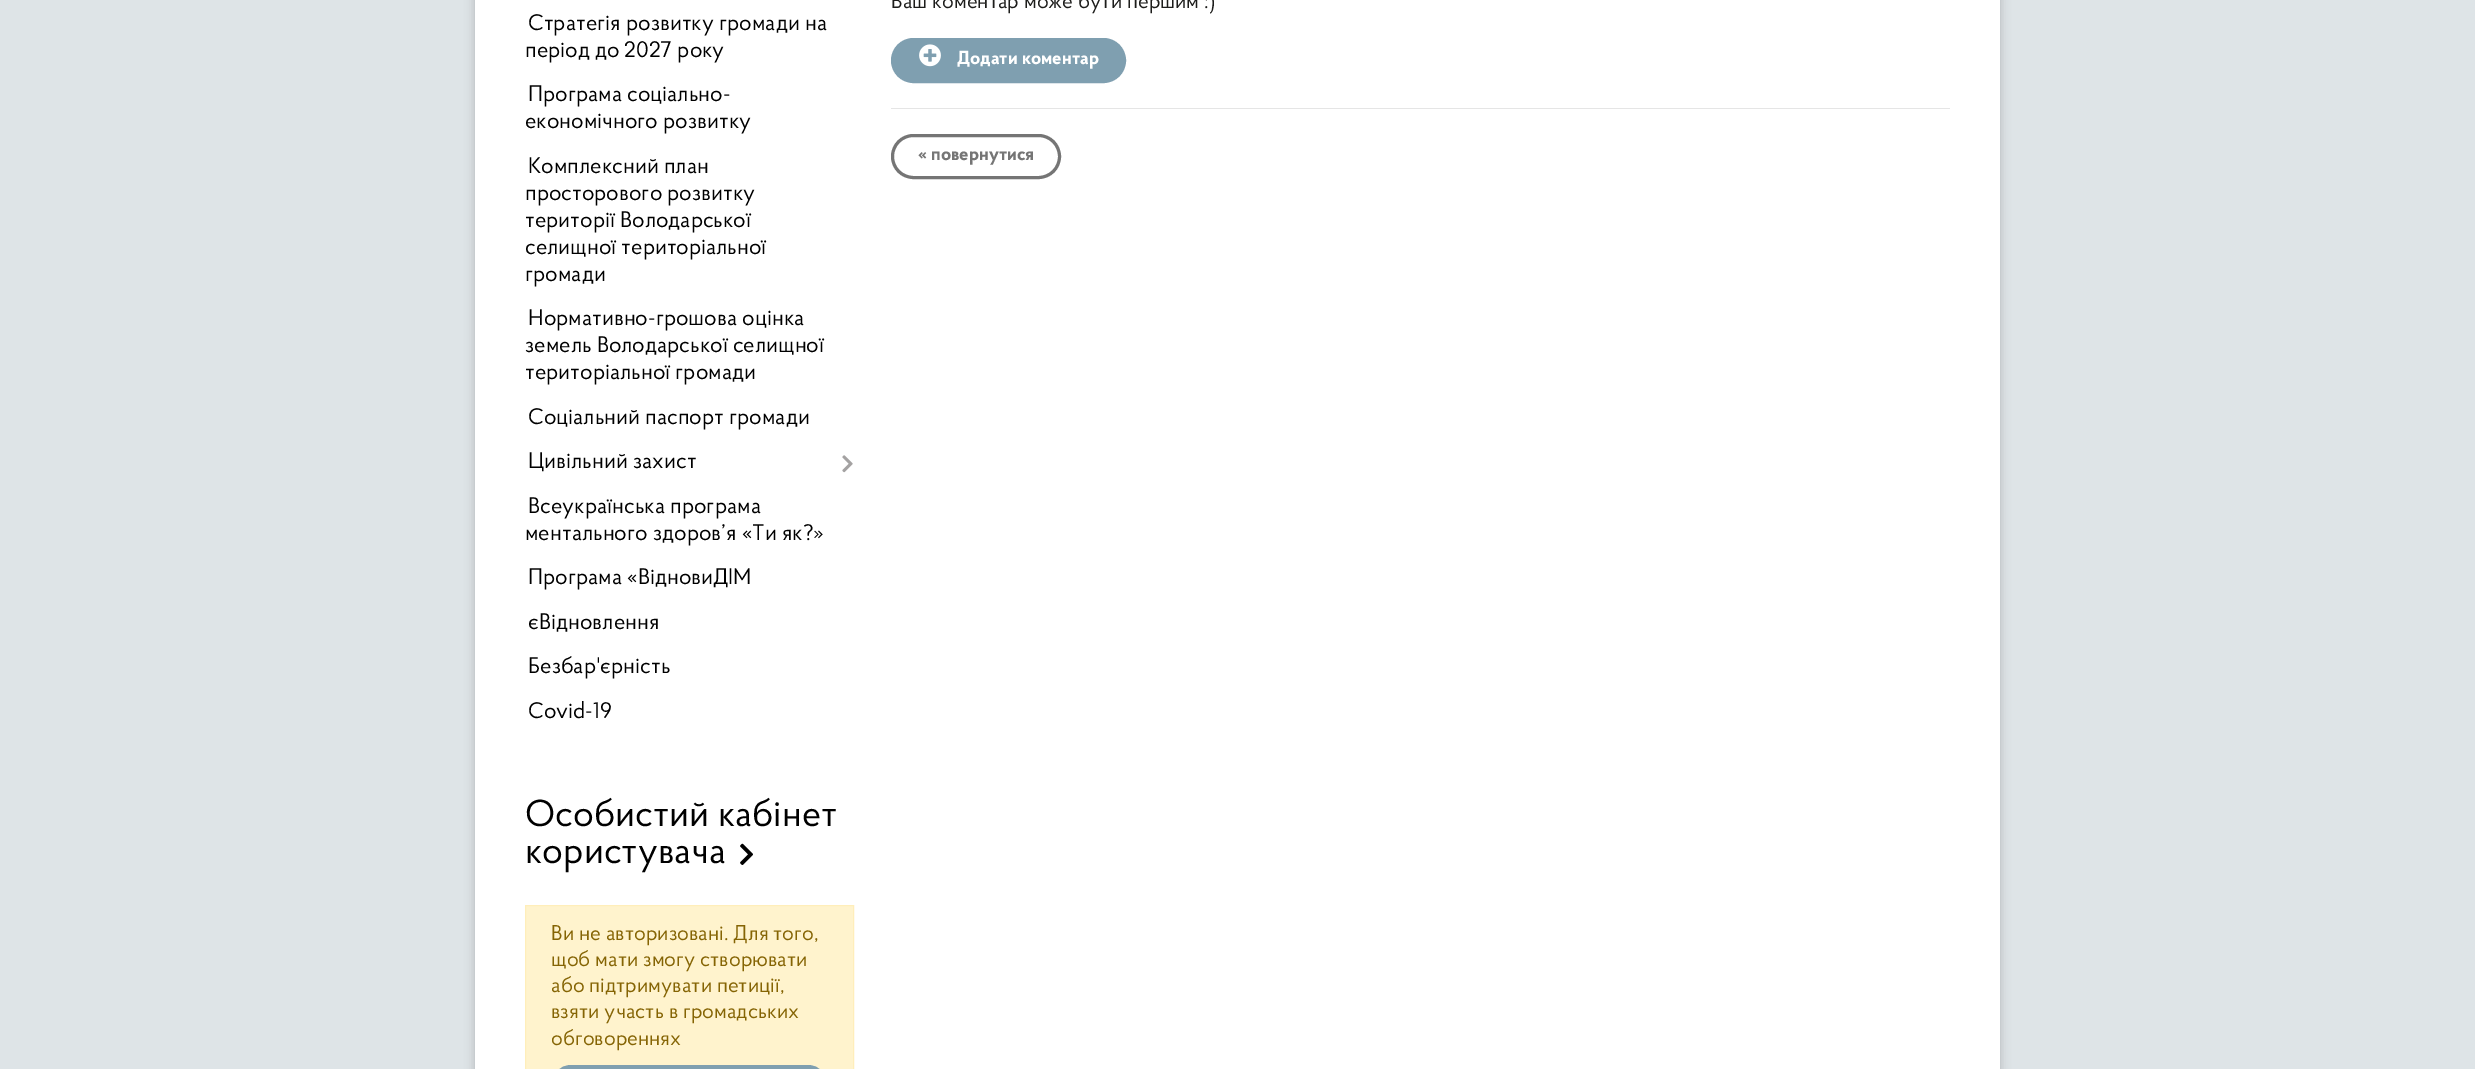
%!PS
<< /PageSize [2475 1069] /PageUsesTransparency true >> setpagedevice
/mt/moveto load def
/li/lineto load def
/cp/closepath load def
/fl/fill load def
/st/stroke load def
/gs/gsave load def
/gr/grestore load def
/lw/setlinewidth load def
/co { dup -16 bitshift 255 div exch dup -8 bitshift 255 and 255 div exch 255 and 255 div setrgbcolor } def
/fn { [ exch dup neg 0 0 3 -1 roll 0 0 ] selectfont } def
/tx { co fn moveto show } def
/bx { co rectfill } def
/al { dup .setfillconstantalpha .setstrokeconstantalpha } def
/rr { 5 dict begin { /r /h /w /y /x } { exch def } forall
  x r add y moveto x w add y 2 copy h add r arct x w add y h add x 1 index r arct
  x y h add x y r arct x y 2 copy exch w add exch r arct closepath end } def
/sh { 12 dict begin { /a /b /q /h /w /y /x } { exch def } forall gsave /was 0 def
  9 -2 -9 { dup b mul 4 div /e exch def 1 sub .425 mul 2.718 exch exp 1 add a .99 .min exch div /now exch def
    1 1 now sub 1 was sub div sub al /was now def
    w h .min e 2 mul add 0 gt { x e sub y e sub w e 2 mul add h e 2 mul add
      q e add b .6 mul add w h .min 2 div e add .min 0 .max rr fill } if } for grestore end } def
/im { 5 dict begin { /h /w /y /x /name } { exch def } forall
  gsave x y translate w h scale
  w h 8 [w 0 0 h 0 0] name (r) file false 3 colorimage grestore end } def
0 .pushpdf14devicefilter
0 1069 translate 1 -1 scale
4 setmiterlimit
0 0 2475 1069 16#DEE4E7 bx
16#000000 co
475 -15 1525 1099 0 5 .2 sh
475 0 1525 1069 16#FFFFFF bx
(media/1.raw) 842 455 11 18 im
(media/2.raw) 740 843 13 22 im
16#FFF3CD co
525.5 905.5 mt 853.5 905.5 li 853.5 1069.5 li 525.5 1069.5 li cp gs fl gr
16#FFEEBA co
st
16#7F9FB0 co
552.5 1066.5 274 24 18.5 rr gs fl gr
3 lw
st
892.5 39.5 232 42 21 rr gs fl gr
st
(media/3.raw) 919 44 22 23 im
891 108 1059 1 16#E5E5E5 bx
16#757575 co
892.5 135.5 167 42 21 rr st
(Стратегія розвитку громади на) 528 30 /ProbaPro-Regular 22.5 16#000000 tx
(період до 2027 року) 525 57 /ProbaPro-Regular 22.5 16#000000 tx
(Програма соціально-) 528 101 /ProbaPro-Regular 22.5 16#000000 tx
(економічного розвитку) 525 128 /ProbaPro-Regular 22.5 16#000000 tx
(Комплексний план) 528 173 /ProbaPro-Regular 22.5 16#000000 tx
(просторового розвитку) 525 200 /ProbaPro-Regular 22.5 16#000000 tx
(території Володарської) 525 227 /ProbaPro-Regular 22.5 16#000000 tx
(селищної територіальної) 525 254 /ProbaPro-Regular 22.5 16#000000 tx
(громади) 525 281 /ProbaPro-Regular 22.5 16#000000 tx
(Нормативно-грошова оцінка) 528 325 /ProbaPro-Regular 22.5 16#000000 tx
(земель Володарської селищної) 525 352 /ProbaPro-Regular 22.5 16#000000 tx
(територіальної громади) 525 379 /ProbaPro-Regular 22.5 16#000000 tx
(Соціальний паспорт громади) 528 424 /ProbaPro-Regular 22.5 16#000000 tx
(Цивільний захист) 528 468 /ProbaPro-Regular 22.5 16#000000 tx
(Всеукраїнська програма) 528 513 /ProbaPro-Regular 22.5 16#000000 tx
(ментального здоров’я «Ти як?») 525 540 /ProbaPro-Regular 22.5 16#000000 tx
(Програма «ВідновиДІМ) 528 584 /ProbaPro-Regular 22.5 16#000000 tx
(єВідновлення) 528 629 /ProbaPro-Regular 22.5 16#000000 tx
(Безбар'єрність) 528 673 /ProbaPro-Regular 22.5 16#000000 tx
(Covid-19) 528 718 /ProbaPro-Regular 22.5 16#000000 tx
(Особистий кабінет) 525 826 /ProbaPro-Regular 37.5 16#000000 tx
(користувача) 525 863 /ProbaPro-Regular 37.5 16#000000 tx
(Ви не авторизовані. Для того,) 551 940 /ProbaPro-Regular 21.25 16#856404 tx
(щоб мати змогу створювати) 551 966 /ProbaPro-Regular 21.25 16#856404 tx
(або підтримувати петиції,) 551 992 /ProbaPro-Regular 21.25 16#856404 tx
(взяти участь в громадських) 551 1018 /ProbaPro-Regular 21.25 16#856404 tx
(обговореннях) 551 1045 /ProbaPro-Regular 21.25 16#856404 tx
(Ваш коментар може бути першим :\)) 891 8 /ProbaPro-Regular 21.25 16#1D1D1B tx
(Додати коментар) 957 64 /ProbaPro-Bold 18.75 16#FFFFFF tx
(« повернутися) 918 160 /ProbaPro-Bold 18.75 16#757575 tx
.poppdf14devicefilter showpage
